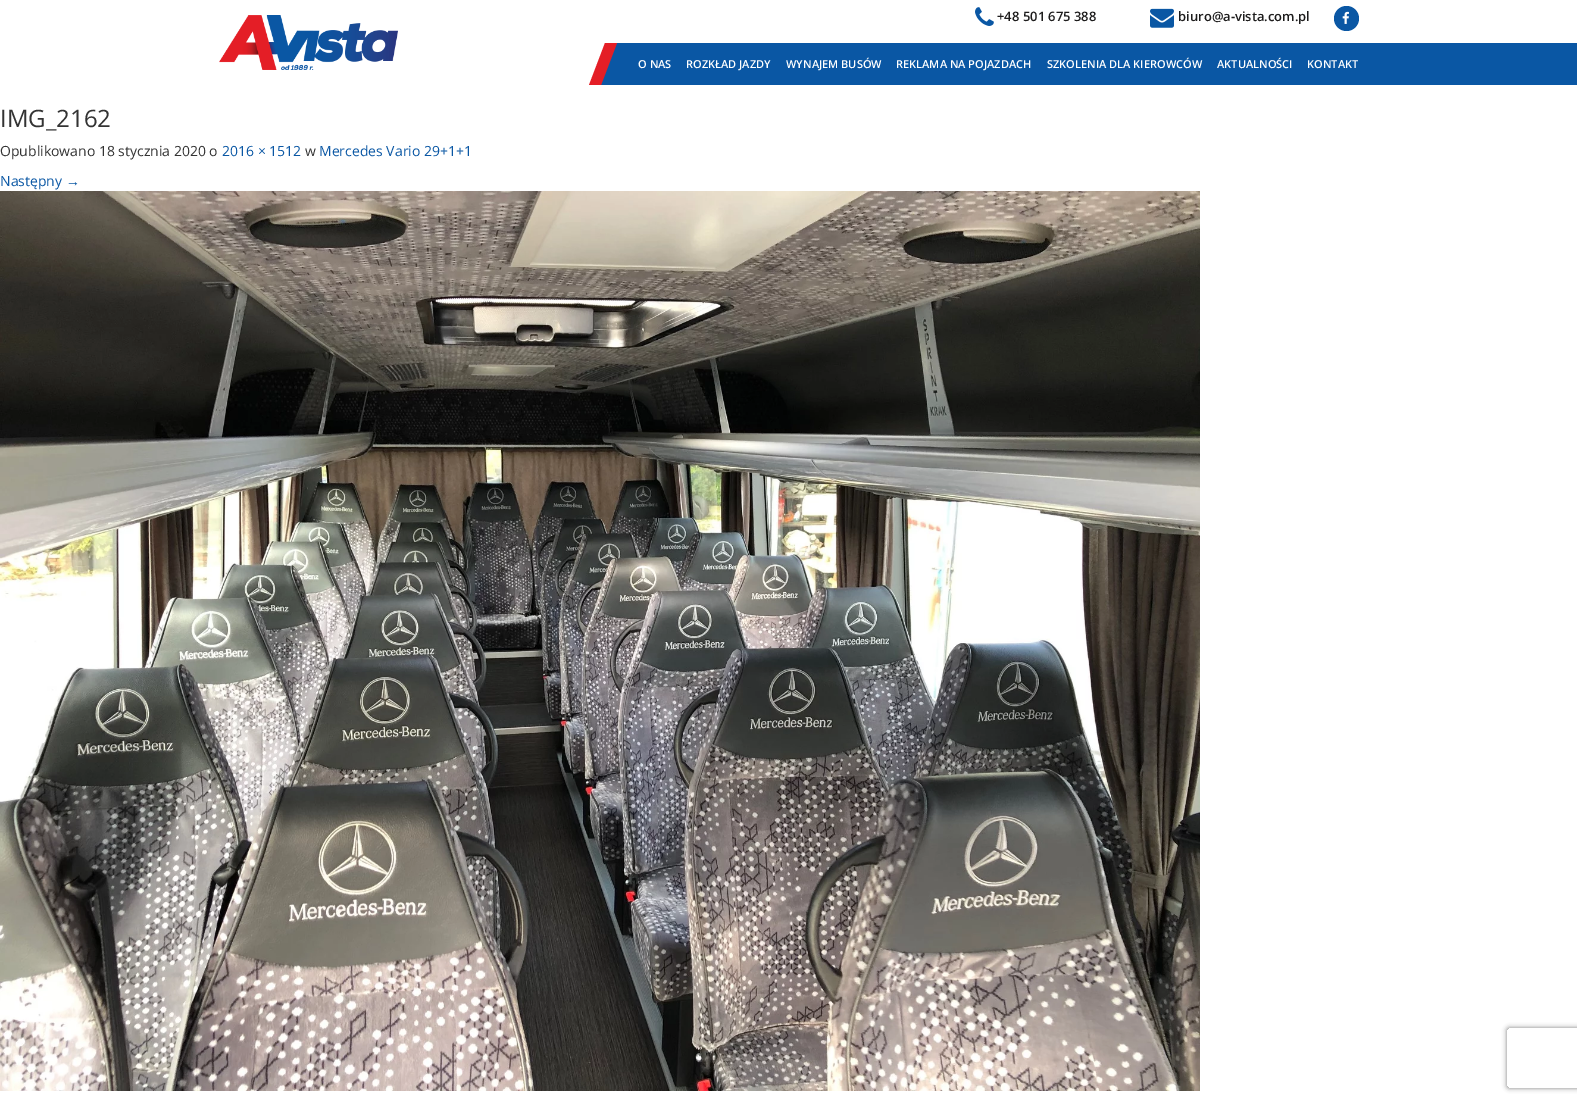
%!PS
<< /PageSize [1577 1102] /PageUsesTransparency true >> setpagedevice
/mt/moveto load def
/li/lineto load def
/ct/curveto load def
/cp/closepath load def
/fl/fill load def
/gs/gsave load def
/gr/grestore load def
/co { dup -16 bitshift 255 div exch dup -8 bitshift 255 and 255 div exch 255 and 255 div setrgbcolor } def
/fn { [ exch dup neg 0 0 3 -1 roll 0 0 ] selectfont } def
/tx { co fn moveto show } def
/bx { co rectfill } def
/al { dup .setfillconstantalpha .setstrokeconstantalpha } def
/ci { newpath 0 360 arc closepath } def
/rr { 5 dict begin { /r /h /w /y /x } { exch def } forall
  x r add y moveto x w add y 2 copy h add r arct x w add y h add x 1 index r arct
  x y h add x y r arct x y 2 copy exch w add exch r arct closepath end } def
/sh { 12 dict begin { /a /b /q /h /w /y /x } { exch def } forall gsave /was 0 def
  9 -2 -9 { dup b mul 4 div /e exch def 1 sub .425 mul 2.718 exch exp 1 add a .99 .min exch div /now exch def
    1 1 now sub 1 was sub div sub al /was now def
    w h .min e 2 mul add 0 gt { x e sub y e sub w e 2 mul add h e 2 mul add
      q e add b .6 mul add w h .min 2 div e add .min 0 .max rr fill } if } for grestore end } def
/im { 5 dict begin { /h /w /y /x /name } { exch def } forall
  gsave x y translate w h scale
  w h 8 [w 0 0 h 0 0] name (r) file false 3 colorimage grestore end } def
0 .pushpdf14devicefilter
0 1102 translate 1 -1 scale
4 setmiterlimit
0 0 1577 1102 16#FFFFFF bx
(media/1.raw) 219 15 179 55 im
(media/2.raw) 975 7 19 19 im
(media/3.raw) 1150 8 24 20 im
16#0A57A4 co
1346.5 18.5 12.5 ci fl
(media/4.raw) 1342 11 7 13 im
608 43 969 42 16#0A57A4 bx
gs
0 0 1577 85 rectclip
608 93 mt 596 93 li 608 43 li cp fl
16#E41E26 co
605 43 mt 617 43 li 598 93 li 586 93 li cp fl
gr
(media/5.raw) 0 191 1200 900 im
gs
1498 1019 mt 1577 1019 li 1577 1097 li 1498 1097 li cp 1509 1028 mt 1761 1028 li 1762 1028 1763 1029 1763 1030 ct 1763 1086 li 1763 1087 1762 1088 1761 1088 ct 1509 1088 li 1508 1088 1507 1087 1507 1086 ct 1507 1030 li 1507 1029 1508 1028 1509 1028 ct cp eoclip newpath
16#808080 co
1507 1028 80 60 2 2.5 1 sh
gr
(+48 501 675 388) 997 21 /OpenSans-SemiBold 13 16#1D1C1C tx
(biuro@a-vista.com.pl) 1178 21 /OpenSans-SemiBold 13 16#1D1C1C tx
(O NAS) 638 68 /OpenSans-SemiBold 11 16#FFFFFF tx
(ROZKŁAD JAZDY) 686 68 /OpenSans-SemiBold 11 16#FFFFFF tx
(WYNAJEM BUSÓW) 786 68 /OpenSans-SemiBold 11 16#FFFFFF tx
(REKLAMA NA POJAZDACH) 896 68 /OpenSans-SemiBold 11 16#FFFFFF tx
(SZKOLENIA DLA KIEROWCÓW) 1047 68 /OpenSans-SemiBold 11 16#FFFFFF tx
(AKTUALNOŚCI) 1217 68 /OpenSans-SemiBold 11 16#FFFFFF tx
(KONTAKT) 1307 68 /OpenSans-SemiBold 11 16#FFFFFF tx
(IMG_2162) 0 127 /OpenSans-Regular 24 16#333333 tx
(Opublikowano 18 stycznia 2020 o) 0 156 /OpenSans-Regular 14 16#333333 tx
(2016 × 1512) 222 156 /OpenSans-Regular 14 16#0A57A4 tx
(w) 305 156 /OpenSans-Regular 14 16#333333 tx
(Mercedes Vario 29+1+1) 319 156 /OpenSans-Regular 14 16#0A57A4 tx
(Następny) 0 186 /OpenSans-Regular 14 16#0A57A4 tx
(→) 66 186 /LiberationSans-Regular 14 16#0A57A4 tx
.poppdf14devicefilter showpage
